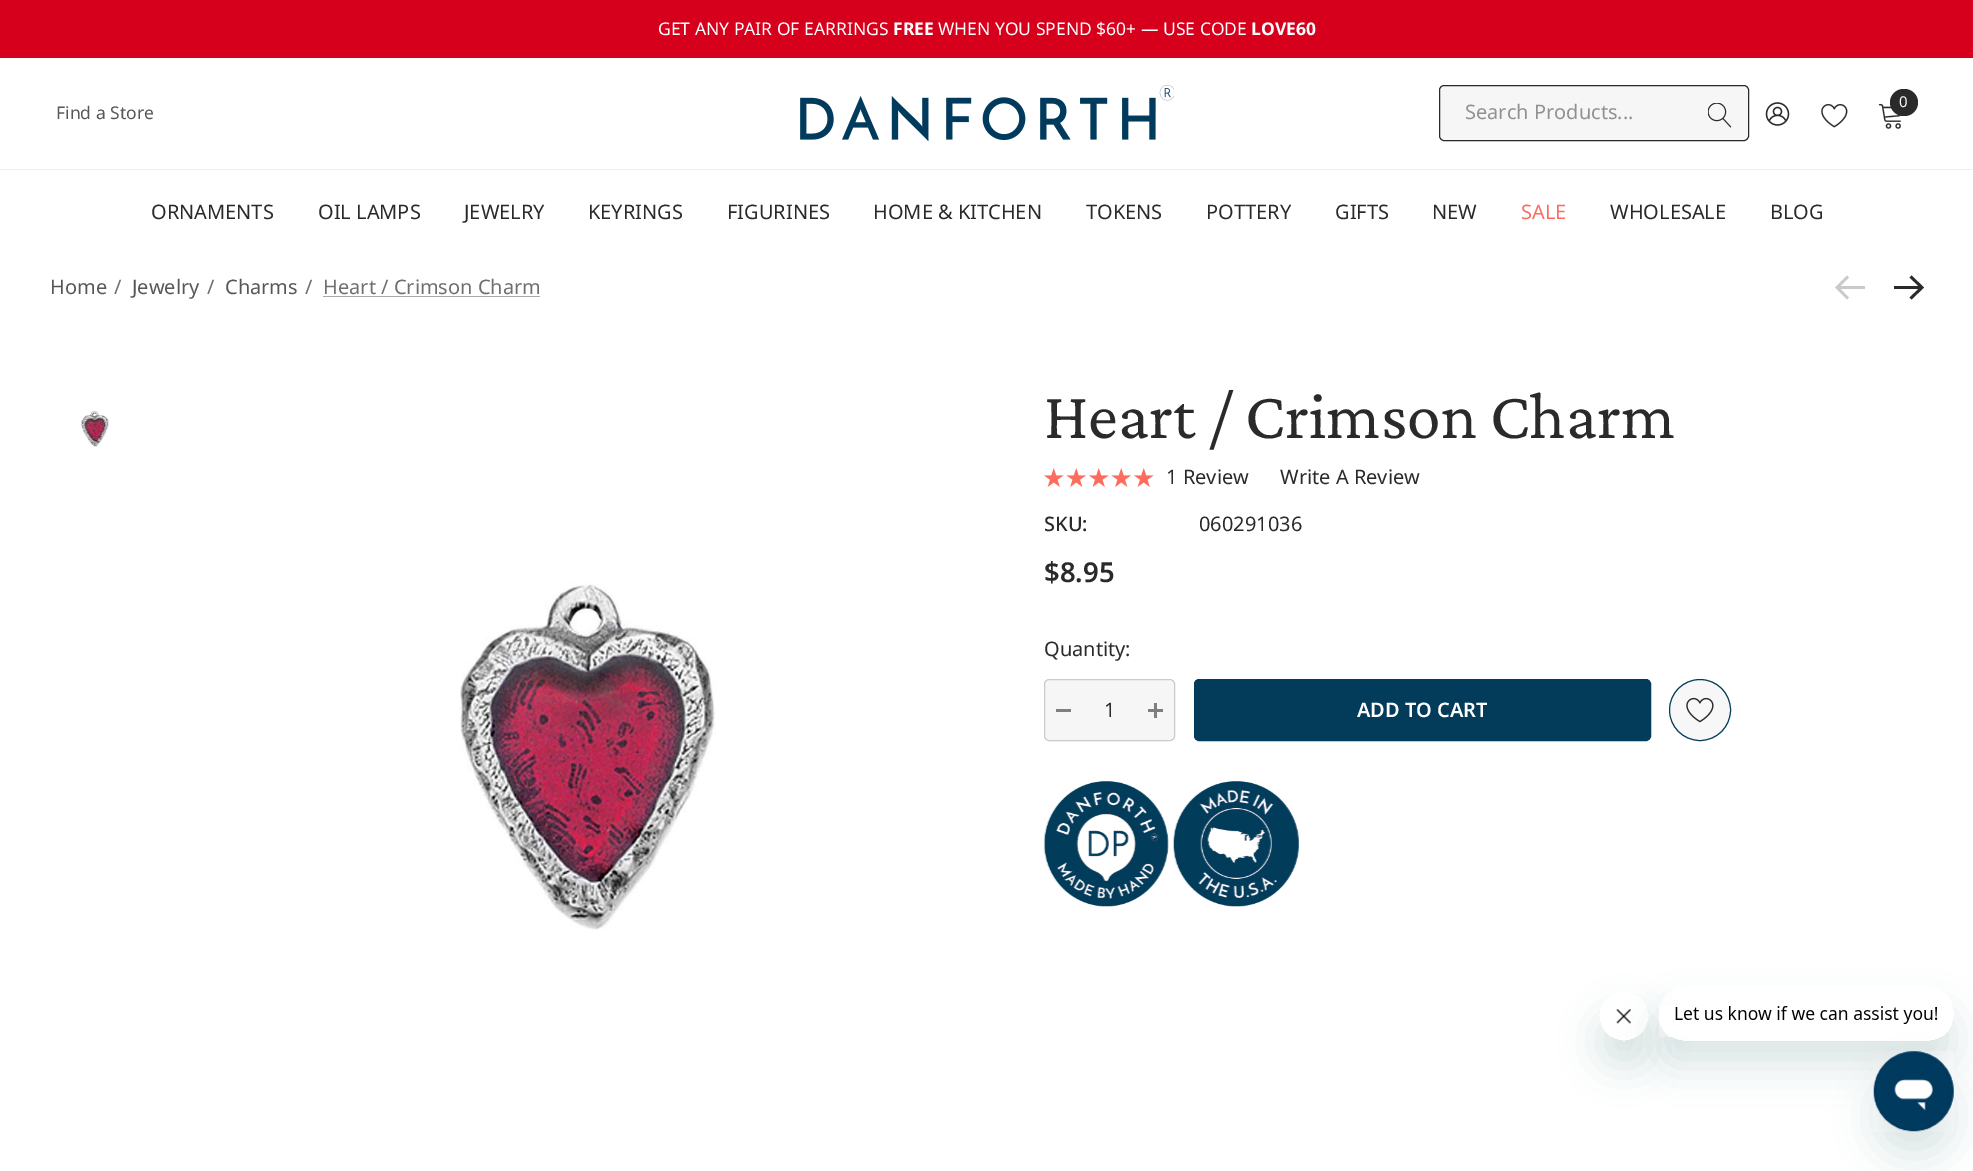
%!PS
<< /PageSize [1973 1171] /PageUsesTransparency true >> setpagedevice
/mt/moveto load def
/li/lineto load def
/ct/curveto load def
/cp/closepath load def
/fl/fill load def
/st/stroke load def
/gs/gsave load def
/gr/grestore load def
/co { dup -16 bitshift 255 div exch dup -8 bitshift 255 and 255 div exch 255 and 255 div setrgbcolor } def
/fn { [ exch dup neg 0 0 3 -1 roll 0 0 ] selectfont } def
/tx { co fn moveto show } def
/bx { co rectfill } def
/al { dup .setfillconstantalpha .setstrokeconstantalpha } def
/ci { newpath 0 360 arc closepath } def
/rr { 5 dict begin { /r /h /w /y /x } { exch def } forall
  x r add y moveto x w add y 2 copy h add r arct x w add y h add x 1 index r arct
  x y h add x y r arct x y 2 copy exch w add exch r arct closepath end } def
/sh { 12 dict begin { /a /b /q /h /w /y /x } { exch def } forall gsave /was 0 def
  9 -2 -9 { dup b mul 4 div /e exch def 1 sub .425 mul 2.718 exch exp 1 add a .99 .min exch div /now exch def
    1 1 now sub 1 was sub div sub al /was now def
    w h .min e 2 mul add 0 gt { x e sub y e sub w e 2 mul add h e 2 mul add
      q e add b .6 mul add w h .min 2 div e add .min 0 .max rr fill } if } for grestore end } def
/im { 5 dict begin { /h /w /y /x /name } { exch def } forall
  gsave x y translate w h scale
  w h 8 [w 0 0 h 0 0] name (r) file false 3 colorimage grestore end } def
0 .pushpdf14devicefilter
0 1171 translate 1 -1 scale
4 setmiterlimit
0 0 1973 1171 16#FFFFFF bx
0 0 1973 58 16#D6001C bx
(media/1.raw) 800 85 374 56 im
16#F6F6F6 co
1439.5 85.5 309 55 4.5 rr gs fl gr
16#2A2A2A co
st
(media/2.raw) 1708 103 24 25 im
(media/3.raw) 1765 102 25 24 im
(media/4.raw) 1821 103 27 25 im
(media/5.raw) 1878 103 23 26 im
1890 89 28 27 13.5 rr fl
0 169 1973 1 16#EEEEEE bx
323 296 217 1 16#A9A9A9 bx
(media/6.raw) 81 410 28 37 im
(media/7.raw) 460 583 256 347 im
16#CACACA co
1848 298.5 mt 1849 297.5 li 1840.5 289 li 1865 289 li 1865 286 li 1840.5 286 li 1849 277.5 li 1847 275.5 li 1835 287.5 li 1847 299.5 li cp fl
16#2A2A2A co
1910.5 276.5 mt 1909.5 277.5 li 1918.5 286 li 1894 286 li 1894 289 li 1918.5 289 li 1909.5 297.5 li 1911.5 299.5 li 1924 287.5 li 1911.5 275.5 li cp fl
(media/8.raw) 1044 468 20 19 im
(media/9.raw) 1066 468 20 19 im
(media/8.raw) 1089 468 20 19 im
(media/9.raw) 1111 468 20 19 im
(media/8.raw) 1134 468 20 19 im
16#F6F6F6 co
1044.5 679.5 130 61 4.5 rr gs fl gr
16#CBCBCB co
st
1056 709 15 3 16#7F7F7F bx
1148 709 15 3 16#7F7F7F bx
1154 703 3 15 16#7F7F7F bx
16#033C5A co
1194.5 679.5 456 61 4.5 rr gs fl gr
st
16#F7F7F7 co
1700 710 30.5 ci gs fl gr
16#033C5A co
st
(media/10.raw) 1686 697 28 26 im
(media/11.raw) 1043 781 126 126 im
(media/12.raw) 1173 781 126 126 im
gs
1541 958 mt 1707 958 li 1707 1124 li 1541 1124 li cp 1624 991 mt 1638 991 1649 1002 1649 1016 ct 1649 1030 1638 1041 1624 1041 ct 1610 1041 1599 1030 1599 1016 ct 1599 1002 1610 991 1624 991 ct cp eoclip newpath
16#17494D co
1599 1016 50 50 25 19 .15 sh
gr
(media/14.raw) 1616 1009 15 15 im
gs
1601 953 mt 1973 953 li 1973 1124 li 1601 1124 li cp 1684 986 mt 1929 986 li 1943 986 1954 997 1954 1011 ct 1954 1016 li 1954 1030 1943 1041 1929 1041 ct 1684 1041 li 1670 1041 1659 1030 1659 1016 ct 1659 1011 li 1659 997 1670 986 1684 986 ct cp eoclip newpath
16#17494D co
1659 1011 295 55 25 19 .15 sh
gr
(media/13.raw) 1659 1006 279 31 im
16#17494D co
1874 1076 80 80 40 19 .15 sh
(media/15.raw) 1873 1051 81 81 im
(GET ANY PAIR OF EARRINGS) 658 35 /NotoSans-Regular 17.5 16#FFFFFF tx
(FREE) 893 35 /NotoSans-Bold 17.5 16#FFFFFF tx
(WHEN YOU SPEND $60+ — USE CODE) 938 35 /NotoSans-Regular 17.5 16#FFFFFF tx
(LOVE60) 1251 35 /NotoSans-Bold 17.5 16#FFFFFF tx
(Find a Store) 56 119 /NotoSans-Regular 17.5 16#575757 tx
(Search Products...) 1465 119 /NotoSans-Regular 20 16#919191 tx
(0) 1899 107 /NotoSans-Regular 15 16#FFFFFF tx
(ORNAMENTS) 151 219 /NotoSans-Regular 20 16#2A2A2A tx
(OIL LAMPS) 318 219 /NotoSans-Regular 20 16#2A2A2A tx
(JEWELRY) 464 219 /NotoSans-Regular 20 16#2A2A2A tx
(KEYRINGS) 588 219 /NotoSans-Regular 20 16#2A2A2A tx
(FIGURINES) 727 219 /NotoSans-Regular 20 16#2A2A2A tx
(HOME & KITCHEN) 873 219 /NotoSans-Regular 20 16#2A2A2A tx
(TOKENS) 1086 219 /NotoSans-Regular 20 16#2A2A2A tx
(POTTERY) 1206 219 /NotoSans-Regular 20 16#2A2A2A tx
(GIFTS) 1335 219 /NotoSans-Regular 20 16#2A2A2A tx
(NEW) 1432 219 /NotoSans-Regular 20 16#2A2A2A tx
(SALE) 1521 219 /NotoSans-Regular 20 16#FC6C5F tx
(WHOLESALE) 1610 219 /NotoSans-Regular 20 16#2A2A2A tx
(BLOG) 1770 219 /NotoSans-Regular 20 16#2A2A2A tx
(Home) 50 294 /NotoSans-Regular 20 16#575757 tx
(/) 114 294 /NotoSans-Regular 20 16#6F6F6F tx
(Jewelry) 132 294 /NotoSans-Regular 20 16#575757 tx
(/) 207 294 /NotoSans-Regular 20 16#6F6F6F tx
(Charms) 225 294 /NotoSans-Regular 20 16#575757 tx
(/) 305 294 /NotoSans-Regular 20 16#6F6F6F tx
(Heart / Crimson Charm) 323 294 /NotoSans-Regular 20 16#6F6F6F tx
(Heart / Crimson Charm) 1044 438 /CrimsonPro-Regular 67.5 16#2A2A2A tx
(1 Review) 1166 484 /NotoSans-Regular 20 16#2A2A2A tx
(Write A Review) 1280 484 /NotoSans-Regular 20 16#2A2A2A tx
(SKU:) 1044 531 /NotoSans-Medium 20 16#2A2A2A tx
(060291036) 1199 531 /NotoSans-Regular 20 16#2A2A2A tx
($8.95) 1044 582 /NotoSans-SemiBold 27.5 16#2A2A2A tx
(Quantity:) 1044 656 /NotoSans-Regular 20 16#2A2A2A tx
(1) 1104 717 /NotoSans-Regular 20 16#2A2A2A tx
(ADD TO CART) 1357 717 /NotoSans-SemiBold 20 16#FFFFFF tx
.poppdf14devicefilter showpage
